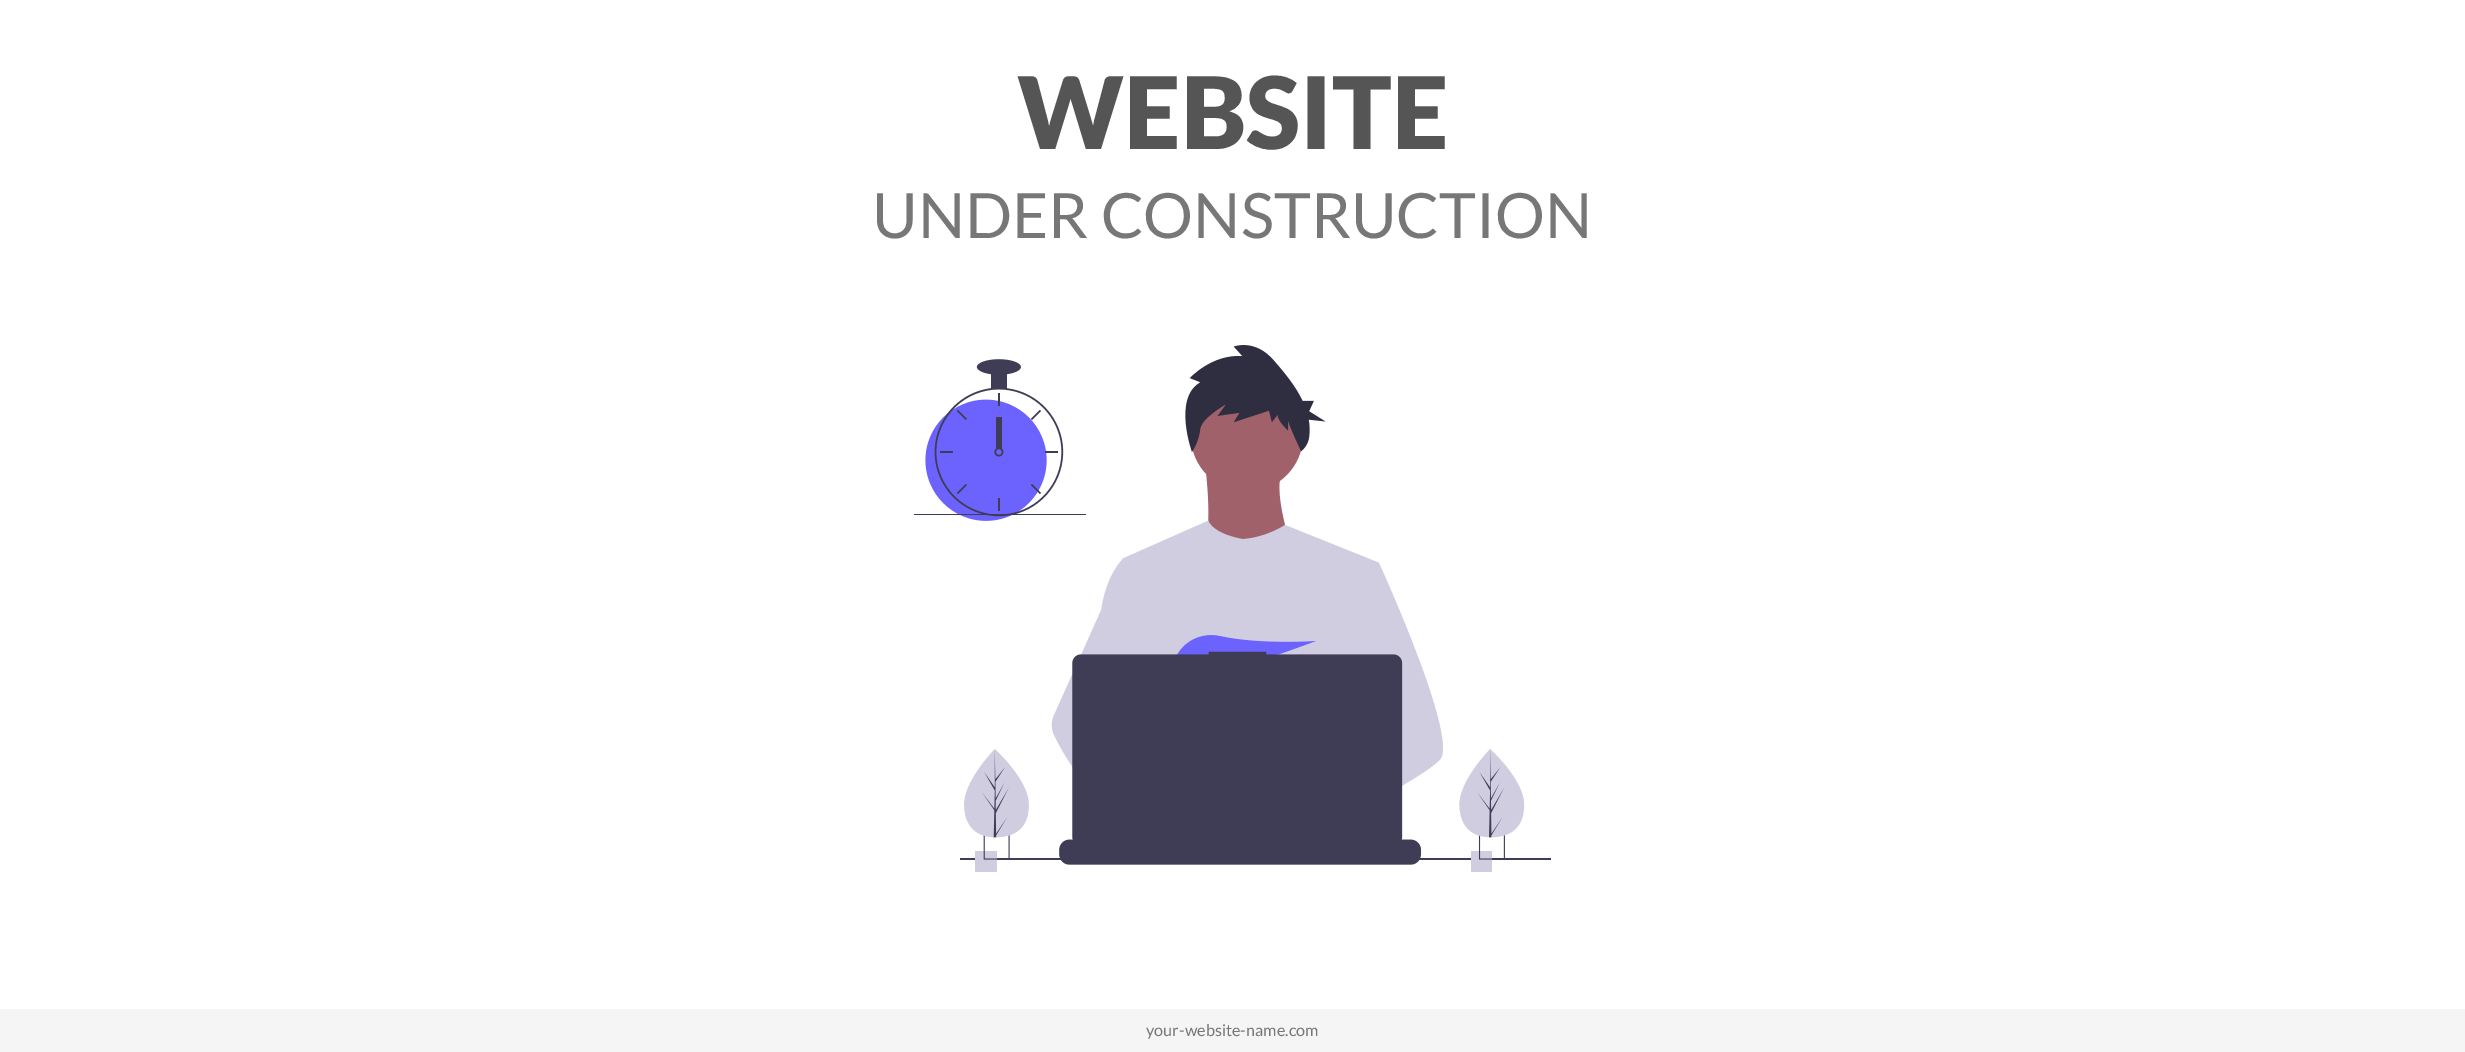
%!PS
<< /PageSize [2465 1052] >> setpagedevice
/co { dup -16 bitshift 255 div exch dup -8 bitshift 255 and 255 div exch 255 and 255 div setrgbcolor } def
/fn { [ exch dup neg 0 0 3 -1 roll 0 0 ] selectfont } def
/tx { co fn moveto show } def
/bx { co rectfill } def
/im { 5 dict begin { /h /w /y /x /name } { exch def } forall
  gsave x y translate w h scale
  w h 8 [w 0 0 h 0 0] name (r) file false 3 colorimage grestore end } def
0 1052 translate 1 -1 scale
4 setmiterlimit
0 0 2465 1052 16#FFFFFF bx
(media/1.raw) 914 345 637 527 im
0 1009 2465 43 16#F5F5F5 bx
(WEBSITE) 1017 149 /Lato-Black 100 16#555555 tx
(UNDER CONSTRUCTION) 872 238 /Lato-Regular 62.5 16#777777 tx
(your-website-name.com) 1146 1036 /Lato-Regular 16.25 16#777777 tx
showpage
